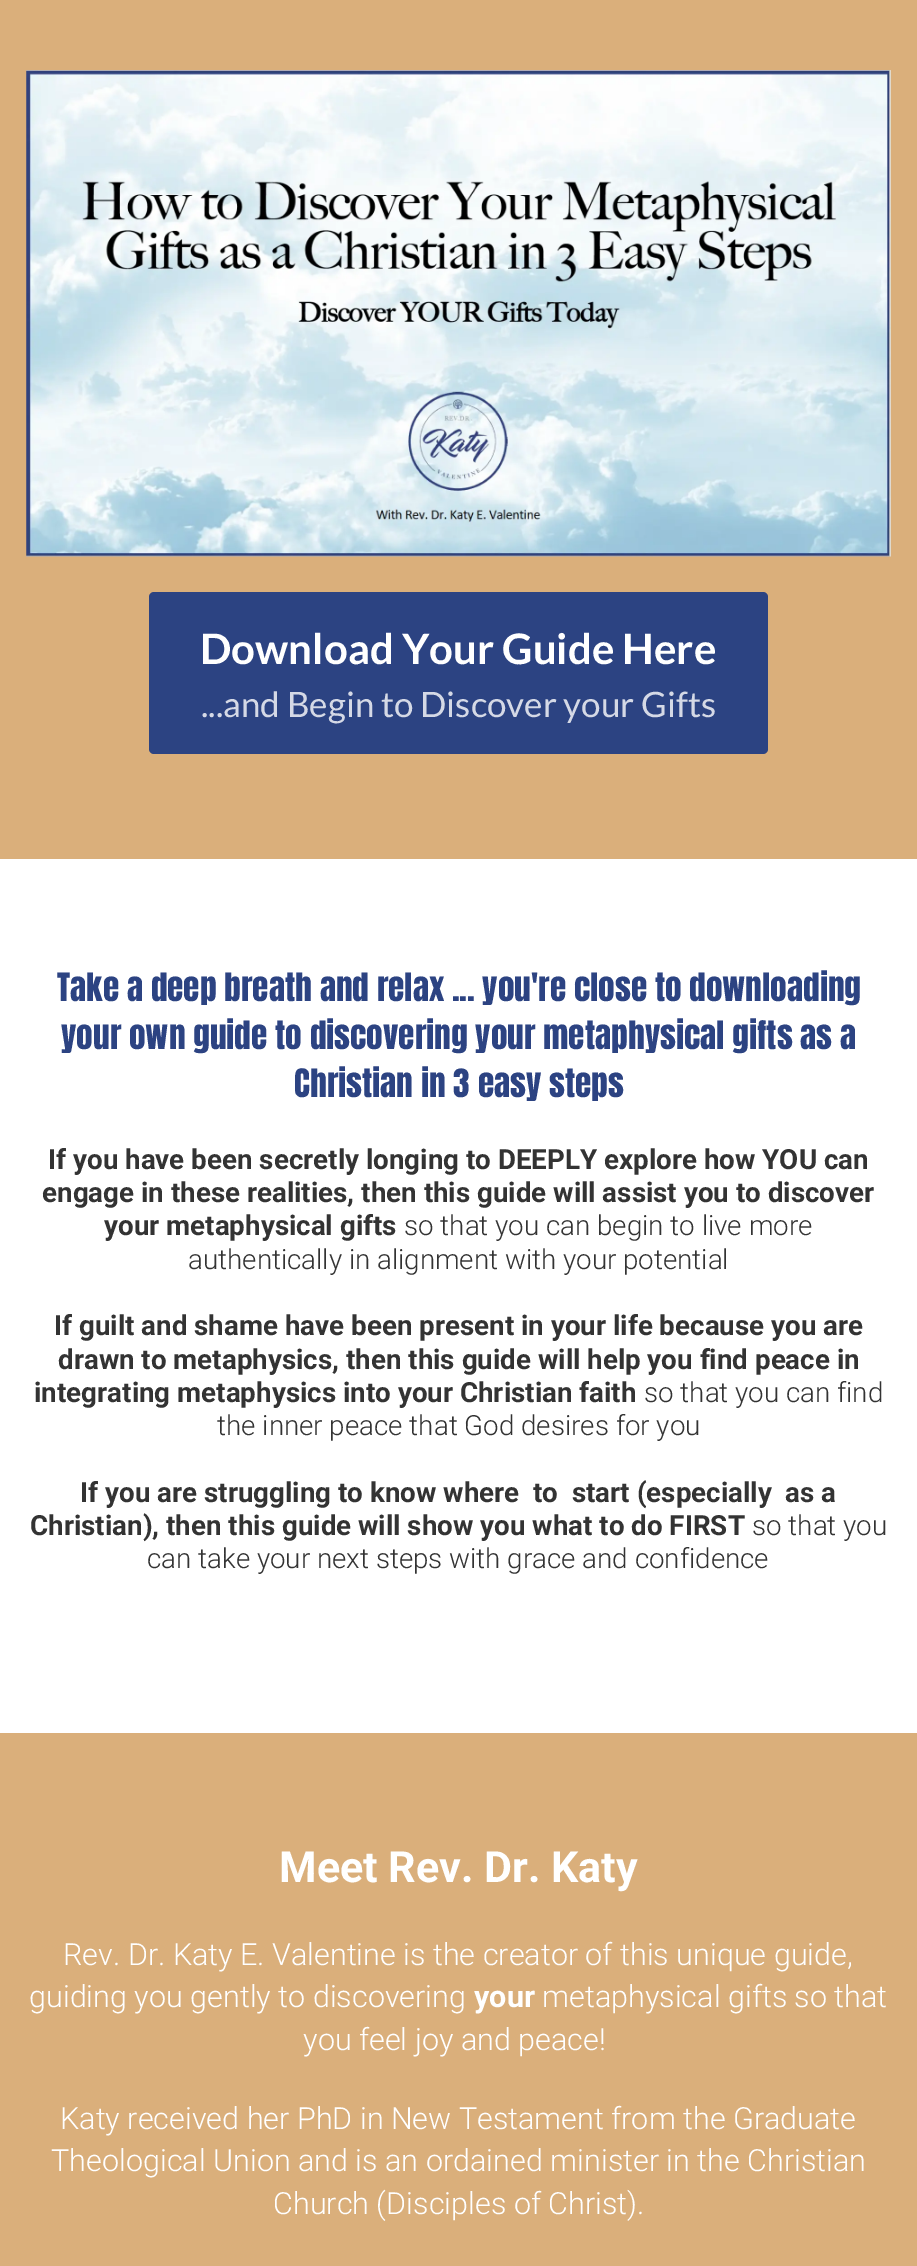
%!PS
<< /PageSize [917 2266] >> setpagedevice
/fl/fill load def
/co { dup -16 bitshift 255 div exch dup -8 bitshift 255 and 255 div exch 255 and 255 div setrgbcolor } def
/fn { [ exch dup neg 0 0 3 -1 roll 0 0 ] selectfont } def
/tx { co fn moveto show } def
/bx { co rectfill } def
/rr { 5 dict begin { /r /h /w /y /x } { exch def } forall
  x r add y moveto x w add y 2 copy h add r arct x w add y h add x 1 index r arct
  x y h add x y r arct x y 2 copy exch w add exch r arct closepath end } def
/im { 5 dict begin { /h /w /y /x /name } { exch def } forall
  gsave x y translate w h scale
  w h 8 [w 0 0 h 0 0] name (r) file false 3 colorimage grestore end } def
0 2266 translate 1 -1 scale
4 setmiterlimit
0 0 917 2266 16#FFFFFF bx
0 0 917 859 16#DAAF7B bx
(media/1.raw) 26 70 865 487 im
16#2C4382 co
149 592 619 162 5 rr fl
0 1733 917 533 16#DAAF7B bx
(Download Your Guide Here) 200 664 /Lato-Bold 42 16#FFFFFF tx
(...and Begin to Discover your Gifts) 201 717 /Lato-Regular 35 16#D5D9E6 tx
(Take a deep breath and relax ... you're close to downloading) 57 1001 /Anton-Regular 33.3 16#2C4382 tx
(your own guide to discovering your metaphysical gifts as a) 61 1049 /Anton-Regular 33.3 16#2C4382 tx
(Christian in 3 easy steps) 294 1097 /Anton-Regular 33.3 16#2C4382 tx
(If you have been secretly longing to DEEPLY explore how YOU can) 48 1169 /Roboto-Bold 27.75 16#333333 tx
(engage in these realities, then this guide will assist you to discover) 42 1202 /Roboto-Bold 27.75 16#333333 tx
(your metaphysical gifts) 104 1235 /Roboto-Bold 27.75 16#333333 tx
(so that you can begin to live more) 404 1235 /Roboto-Light 27.75 16#333333 tx
(authentically in alignment with your potential) 188 1269 /Roboto-Light 27.75 16#333333 tx
(If guilt and shame have been present in your life because you are) 54 1335 /Roboto-Bold 27.75 16#333333 tx
(drawn to metaphysics, then this guide will help you find peace in) 58 1369 /Roboto-Bold 27.75 16#333333 tx
(integrating metaphysics into your Christian faith) 34 1402 /Roboto-Bold 27.75 16#333333 tx
(so that you can find) 644 1402 /Roboto-Light 27.75 16#333333 tx
(the inner peace that God desires for you) 217 1435 /Roboto-Light 27.75 16#333333 tx
(If you are struggling to know where  to  start \(especially  as a) 80 1502 /Roboto-Bold 27.75 16#333333 tx
(Christian\), then this guide will show you what to do FIRST) 30 1535 /Roboto-Bold 27.75 16#333333 tx
(so that you) 752 1535 /Roboto-Light 27.75 16#333333 tx
(can take your next steps with grace and confidence) 147 1568 /Roboto-Light 27.75 16#333333 tx
(Meet Rev. Dr. Katy) 279 1882 /Roboto-Bold 43 16#FFFFFF tx
(Rev. Dr. Katy E. Valentine is the creator of this unique guide,) 63 1965 /Roboto-Light 30.5 16#FFFFFF tx
(guiding you gently to discovering) 29 2007 /Roboto-Light 30.5 16#FFFFFF tx
(your) 474 2007 /Roboto-Bold 30.5 16#FFFFFF tx
(metaphysical gifts so that) 542 2007 /Roboto-Light 30.5 16#FFFFFF tx
(you feel joy and peace!) 303 2050 /Roboto-Light 30.5 16#FFFFFF tx
(Katy received her PhD in New Testament from the Graduate) 60 2129 /Roboto-Light 30.5 16#FFFFFF tx
(Theological Union and is an ordained minister in the Christian) 51 2171 /Roboto-Light 30.5 16#FFFFFF tx
(Church \(Disciples of Christ\).) 273 2214 /Roboto-Light 30.5 16#FFFFFF tx
showpage
